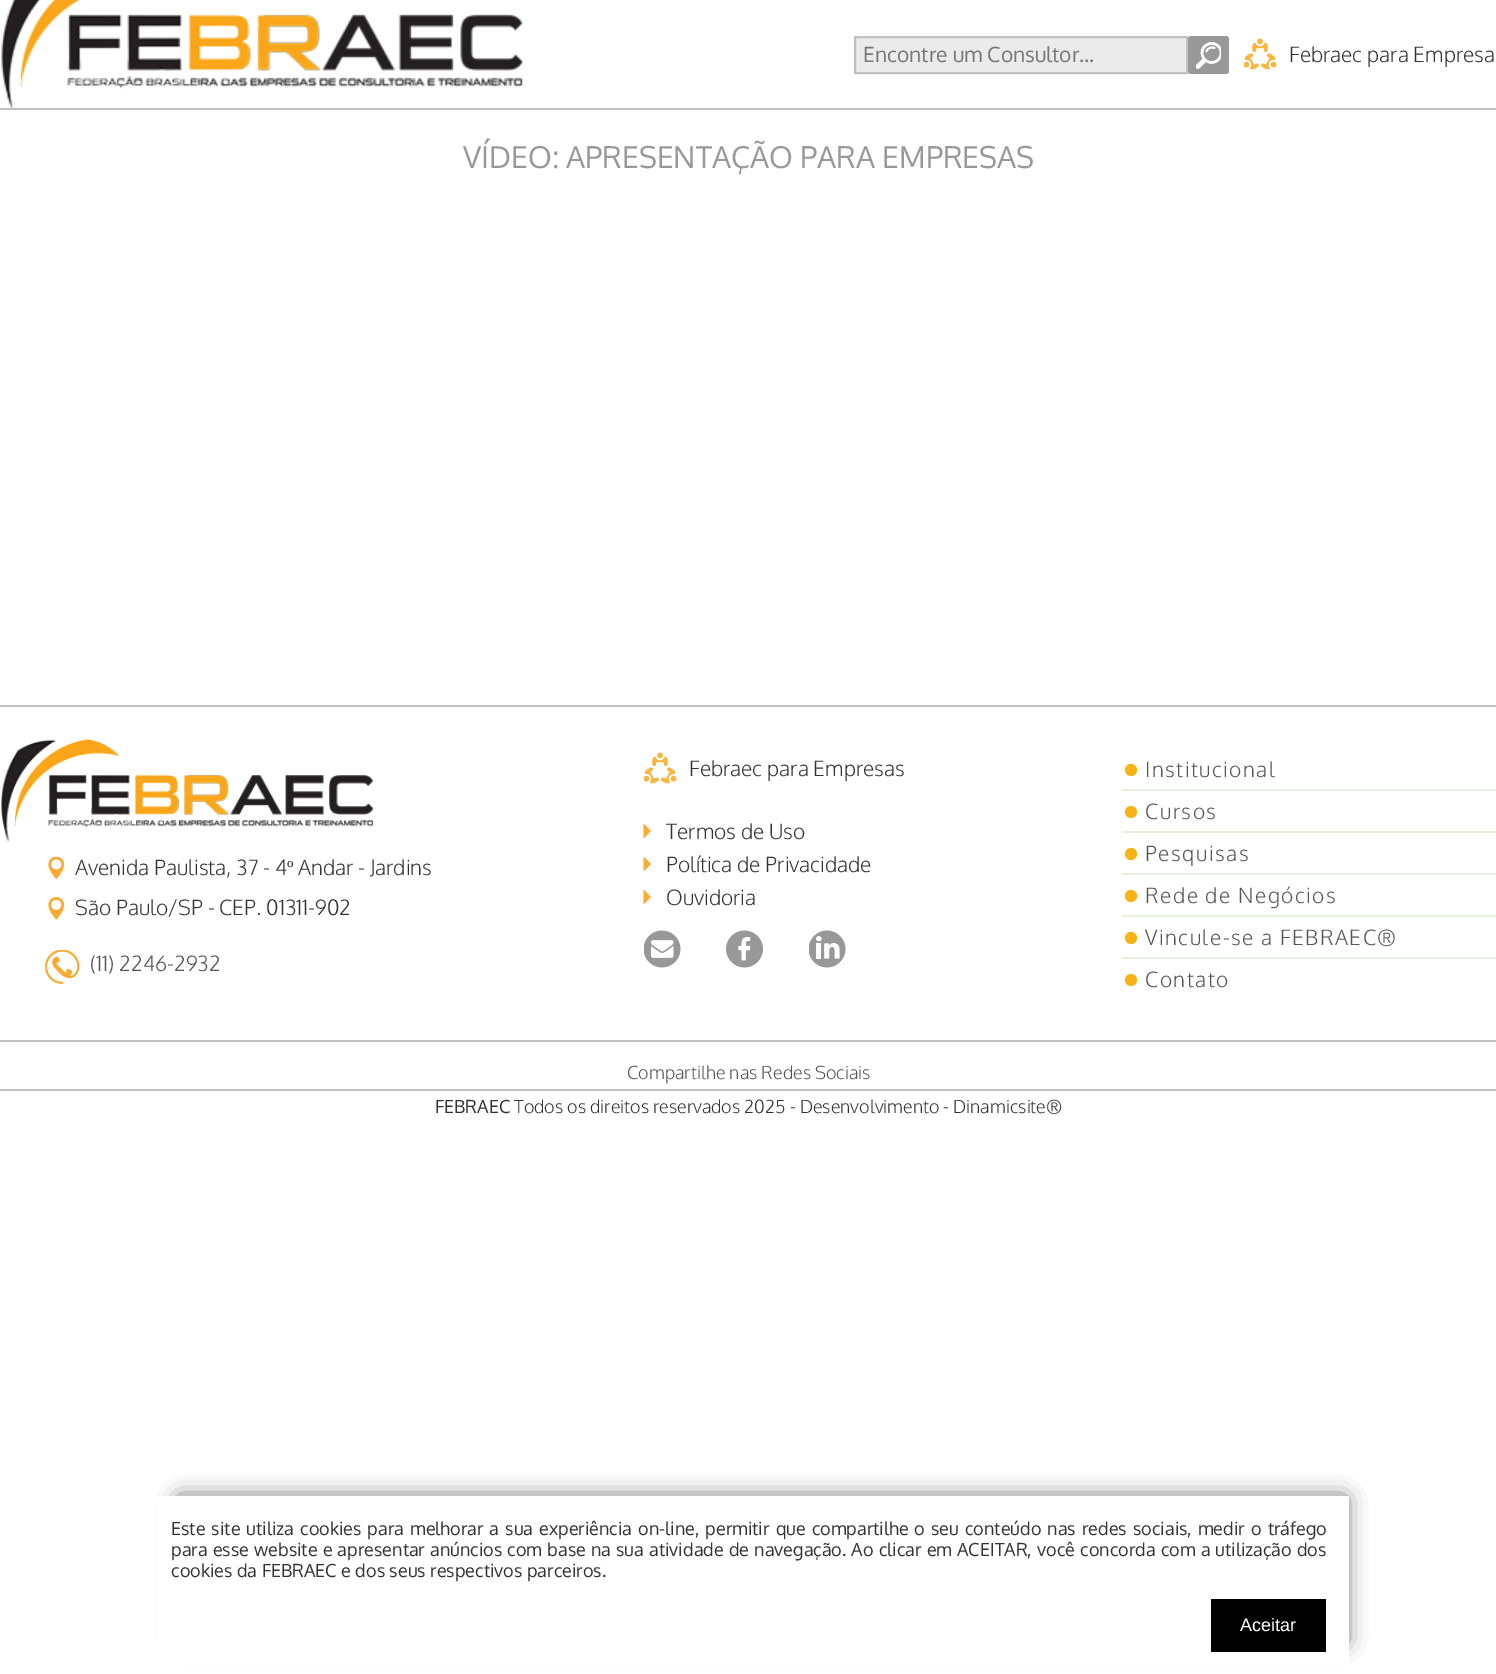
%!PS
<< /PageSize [1496 1674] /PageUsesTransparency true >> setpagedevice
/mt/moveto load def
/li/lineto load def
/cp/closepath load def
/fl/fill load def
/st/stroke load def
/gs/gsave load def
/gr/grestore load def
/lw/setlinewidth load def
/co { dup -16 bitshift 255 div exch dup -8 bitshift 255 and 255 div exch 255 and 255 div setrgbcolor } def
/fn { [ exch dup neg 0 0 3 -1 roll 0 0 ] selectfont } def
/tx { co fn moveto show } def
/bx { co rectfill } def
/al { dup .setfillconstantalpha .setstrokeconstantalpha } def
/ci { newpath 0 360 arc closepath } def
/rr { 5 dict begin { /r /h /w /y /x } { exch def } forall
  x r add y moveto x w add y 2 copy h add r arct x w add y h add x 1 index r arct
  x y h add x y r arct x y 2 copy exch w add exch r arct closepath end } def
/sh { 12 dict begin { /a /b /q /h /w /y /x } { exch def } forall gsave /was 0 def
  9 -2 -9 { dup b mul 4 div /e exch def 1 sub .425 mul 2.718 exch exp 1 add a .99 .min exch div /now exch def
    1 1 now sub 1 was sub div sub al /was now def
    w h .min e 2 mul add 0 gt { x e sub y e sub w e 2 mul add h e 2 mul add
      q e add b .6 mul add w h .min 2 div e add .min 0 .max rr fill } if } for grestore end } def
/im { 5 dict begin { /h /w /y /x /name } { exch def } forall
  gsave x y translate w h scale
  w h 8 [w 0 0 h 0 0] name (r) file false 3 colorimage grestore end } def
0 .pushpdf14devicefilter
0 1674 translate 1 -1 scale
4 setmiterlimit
0 0 1496 1674 16#FFFFFF bx
0 108 1496 2 16#C0C0C0 bx
(media/1.raw) 1 0 522 108 im
16#EBEBEB co
855 37 mt 1187 37 li 1187 73 li 855 73 li cp gs fl gr
16#C0C0C0 co
2 lw
st
16#999999 co
1188 36 41 38 3 rr fl
(media/2.raw) 1196 42 25 27 im
(media/3.raw) 1244 38 33 32 im
0 705 1496 2 16#C0C0C0 bx
0 1040 1496 2 16#C0C0C0 bx
(media/4.raw) 1 738 373 104 im
(media/5.raw) 48 857 17 22 im
(media/6.raw) 48 897 17 23 im
(media/7.raw) 45 950 35 34 im
(media/3.raw) 644 752 33 32 im
16#FFA930 co
643.5 838.5 mt 643.5 823.5 li 651 831 li cp fl
643.5 871.5 mt 643.5 856.5 li 651 864 li cp fl
643.5 904.5 mt 643.5 889.5 li 651 897 li cp fl
(media/8.raw) 644 930 37 38 im
(media/9.raw) 726 930 37 38 im
(media/10.raw) 809 930 37 38 im
16#F7B216 co
1131 770 6 ci fl
1122 789 374 2 16#E8F1E0 bx
16#F7B216 co
1131 812 6 ci fl
1122 831 374 2 16#E8F1E0 bx
16#F7B216 co
1131 854 6 ci fl
1122 873 374 2 16#E8F1E0 bx
16#F7B216 co
1131 896 6 ci fl
1122 915 374 2 16#E8F1E0 bx
16#F7B216 co
1131 938 6 ci fl
1122 957 374 2 16#E8F1E0 bx
16#F7B216 co
1131 980 6 ci fl
0 1089 1496 2 16#C0C0C0 bx
16#000000 co
180 1499 1164 142 0 11 .75 sh
156 1496 1193 169 16#FFFFFF bx
1211 1599 115 53 16#000000 bx
(Encontre um Consultor...) 863 62 /Oxygen-Regular 21 16#777777 tx
(Febraec para Empresa) 1289 62 /Oxygen-Light 21 16#333333 tx
(VÍDEO: APRESENTAÇÃO PARA EMPRESAS) 463 168 /Oxygen-Regular 30 16#989898 tx
(Avenida Paulista, 37 - 4) 75 875 /Oxygen-Light 21 16#333333 tx
(º) 287 875 /LiberationSerif-Regular 21 16#333333 tx
(Andar - Jardins) 298 875 /Oxygen-Light 21 16#333333 tx
(São Paulo/SP - CEP. 01311-902) 75 915 /Oxygen-Light 21 16#333333 tx
(-) 45 974 /Oxygen-Light 21 16#FDE1B6 tx
(\(11\) 2246-2932) 90 971 /Oxygen-Light 21 16#555555 tx
(Febraec para Empresas) 689 776 /Oxygen-Light 21 16#333333 tx
(Termos de Uso) 666 839 /Oxygen-Light 21 16#333333 tx
(Política de Privacidade) 666 872 /Oxygen-Light 21 16#333333 tx
(Ouvidoria) 666 905 /Oxygen-Light 21 16#333333 tx
16#555555 co
1145 777 mt 1.5 0 (Institucional) ashow
1145 819 mt 1.5 0 (Cursos) ashow
1145 861 mt 1.5 0 (Pesquisas) ashow
1145 903 mt 1.5 0 (Rede de Negócios) ashow
1145 945 mt 1.5 0 (Vincule-se a FEBRAEC®) ashow
1145 987 mt 1.5 0 (Contato) ashow
(Compartilhe nas Redes Sociais) 627 1079 /Oxygen-Light 18 16#555555 tx
(FEBRAEC) 435 1113 /Oxygen-Regular 18 16#333333 tx
(Todos os direitos reservados 2025 - Desenvolvimento - Dinamicsite®) 514 1113 /Oxygen-Light 18 16#333333 tx
/Oxygen-Regular 18 fn
171 1535 mt 1.6 0 32 (Este site utiliza cookies para melhorar a sua experiência on-line, permitir que compartilhe o seu conteúdo nas redes sociais, medir o tráfego) widthshow
171 1556 mt .7 0 32 (para esse website e apresentar anúncios com base na sua atividade de navegação. Ao clicar em ACEITAR, você concorda com a utilização dos) widthshow
(cookies da FEBRAEC e dos seus respectivos parceiros.) 171 1577 /Oxygen-Regular 18 16#333333 tx
(Aceitar) 1240 1631 /LiberationSans-Regular 18 16#FFFFFF tx
.poppdf14devicefilter showpage
